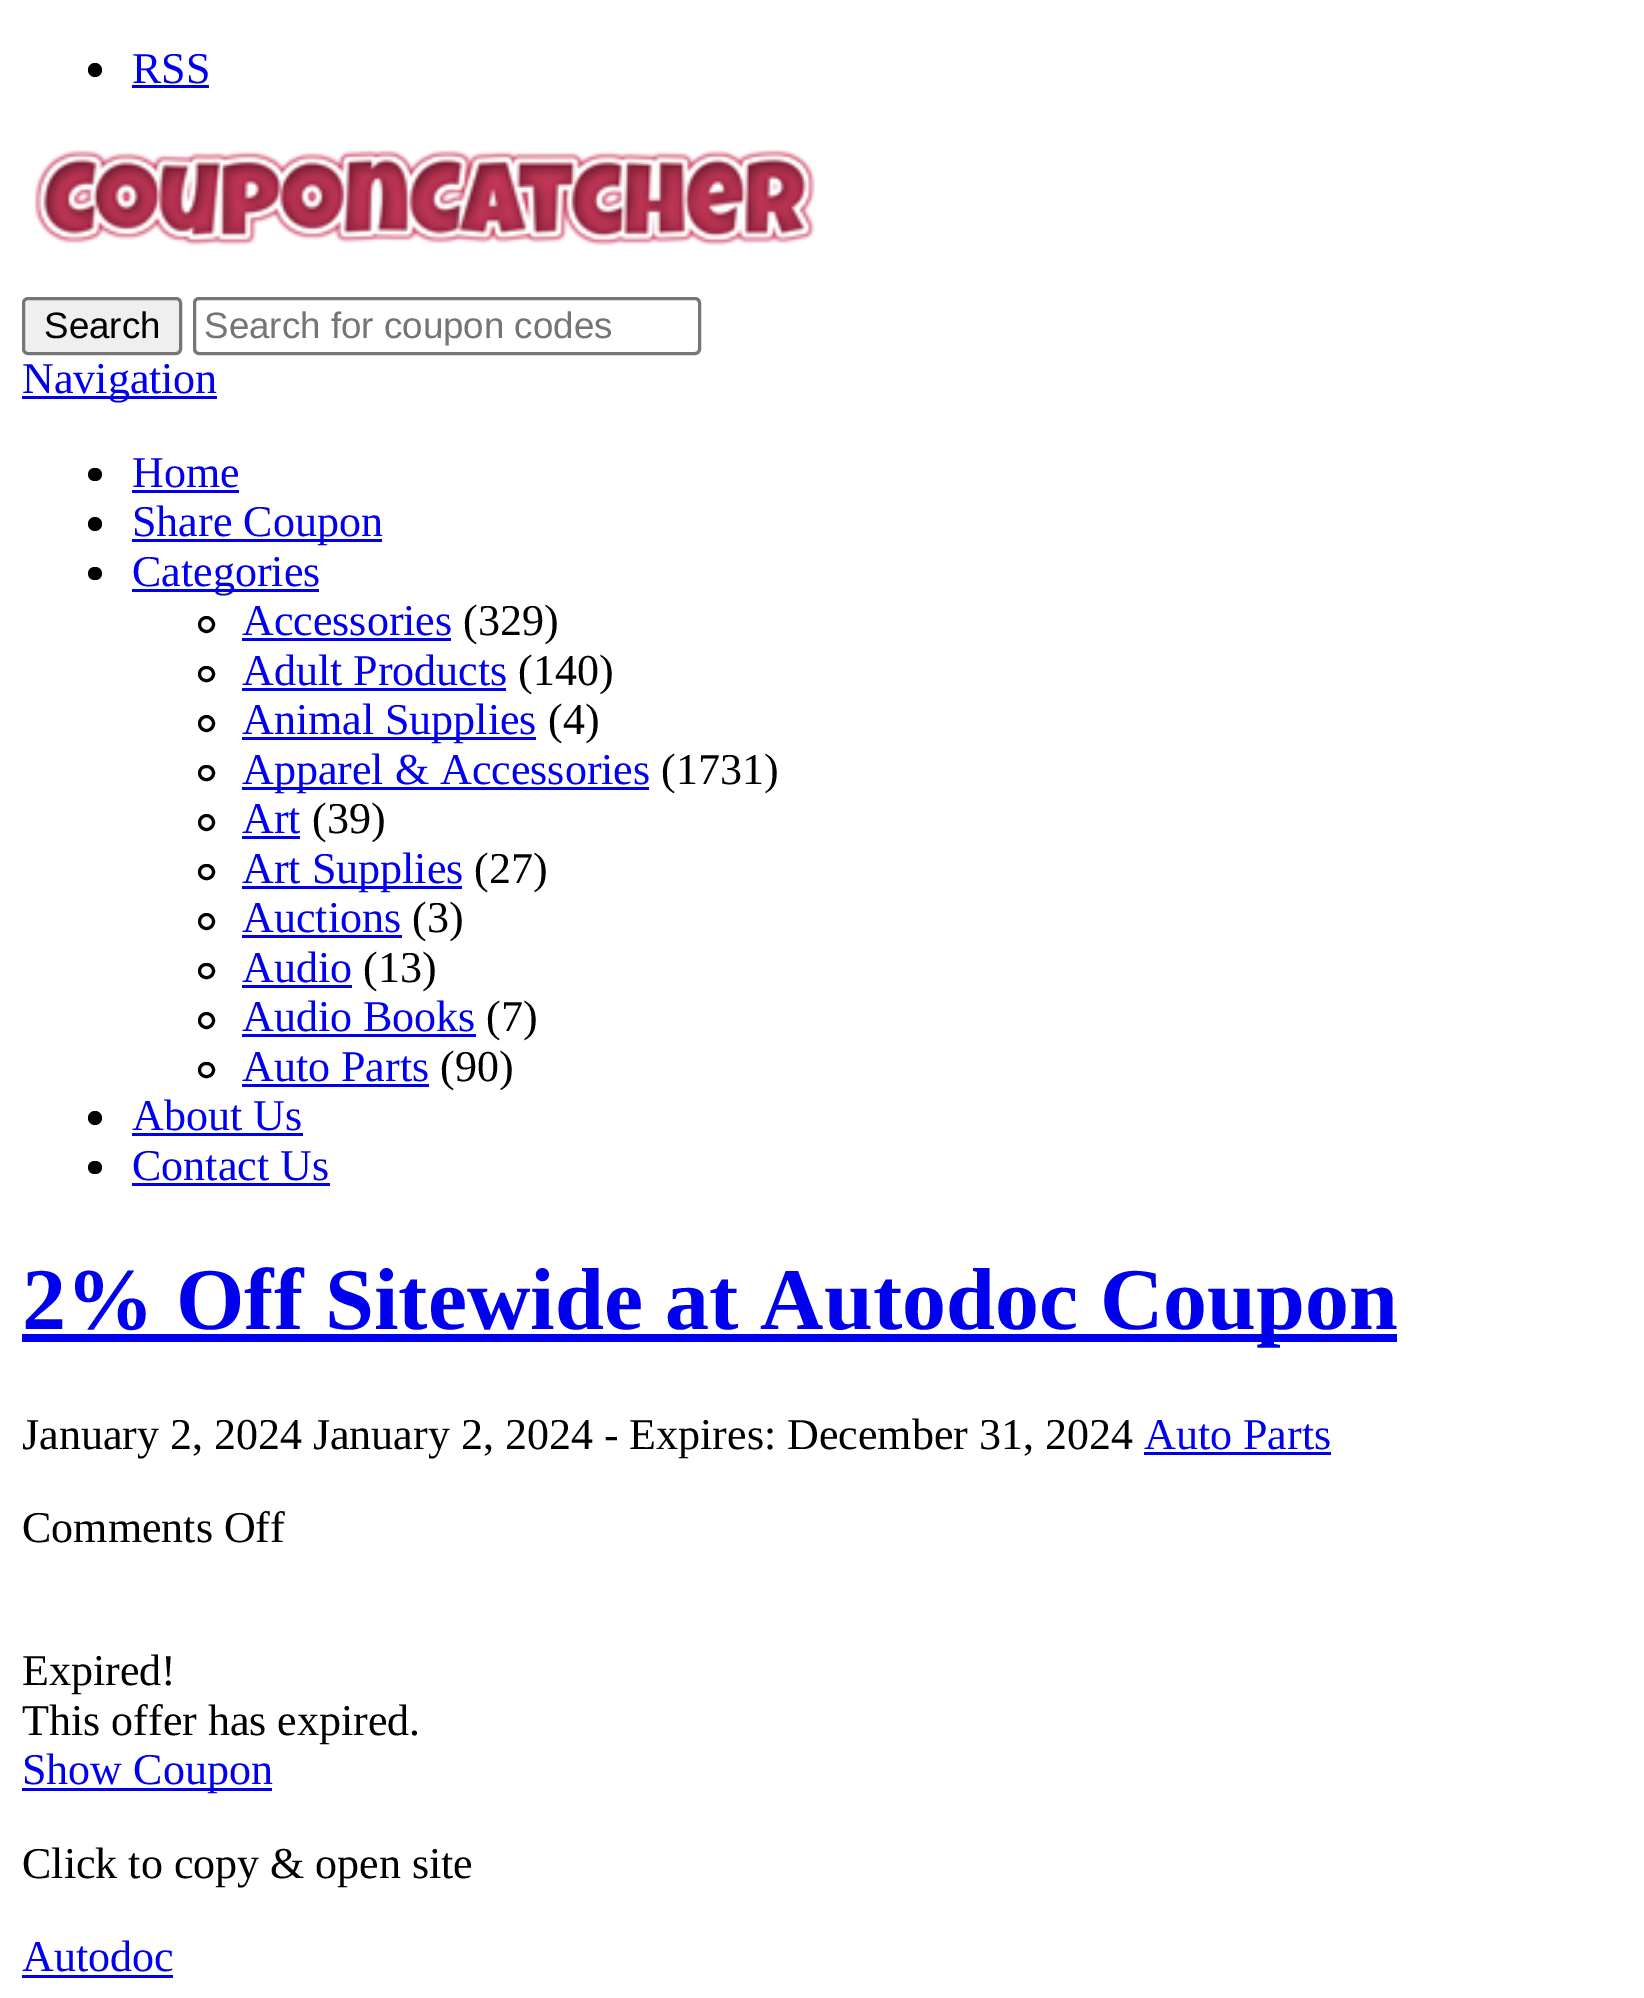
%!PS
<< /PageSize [1644 1998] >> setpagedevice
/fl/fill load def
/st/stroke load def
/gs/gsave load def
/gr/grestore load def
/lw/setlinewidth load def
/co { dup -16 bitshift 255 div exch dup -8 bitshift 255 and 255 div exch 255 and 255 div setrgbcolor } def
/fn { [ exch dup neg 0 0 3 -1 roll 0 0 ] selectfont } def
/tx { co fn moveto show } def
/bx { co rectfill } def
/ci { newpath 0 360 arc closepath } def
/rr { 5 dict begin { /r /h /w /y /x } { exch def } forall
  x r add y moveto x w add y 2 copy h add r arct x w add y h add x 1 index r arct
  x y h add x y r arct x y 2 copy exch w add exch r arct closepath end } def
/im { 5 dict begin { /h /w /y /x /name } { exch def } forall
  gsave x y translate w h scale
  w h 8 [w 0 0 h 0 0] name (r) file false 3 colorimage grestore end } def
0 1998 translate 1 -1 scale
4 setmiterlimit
0 0 1644 1998 16#FFFFFF bx
16#000000 co
95 70 7 ci fl
132 85 77 3 16#0000EE bx
(media/1.raw) 33 149 782 97 im
16#EFEFEF co
23.5 298.5 157 55 4.5 rr gs fl gr
16#767676 co
3 lw
st
194.5 298.5 505 55 4.5 rr st
22 396 195 3 16#0000EE bx
16#000000 co
88 468 14 13 6.5 rr fl
132 490 107 3 16#0000EE bx
16#000000 co
95 524 7 ci fl
132 539 250 3 16#0000EE bx
16#000000 co
88 567 14 13 6.5 rr fl
132 589 187 3 16#0000EE bx
16#000000 co
206.5 624.5 7 ci st
242 638 209 3 16#0000EE bx
16#000000 co
199.5 667.5 14 13 6.5 rr st
242 688 264 3 16#0000EE bx
16#000000 co
206.5 723.5 7 ci st
242 737 294 3 16#0000EE bx
16#000000 co
199.5 766.5 14 13 6.5 rr st
242 787 407 3 16#0000EE bx
16#000000 co
206.5 822.5 7 ci st
242 836 58 3 16#0000EE bx
16#000000 co
199.5 865.5 14 13 6.5 rr st
242 886 220 3 16#0000EE bx
16#000000 co
206.5 921.5 7 ci st
242 935 160 3 16#0000EE bx
16#000000 co
199.5 964.5 14 13 6.5 rr st
242 985 110 3 16#0000EE bx
16#000000 co
206.5 1020.5 7 ci st
242 1034 234 3 16#0000EE bx
16#000000 co
199.5 1063.5 14 13 6.5 rr st
242 1084 187 3 16#0000EE bx
16#000000 co
95 1118 7 ci fl
132 1133 171 3 16#0000EE bx
16#000000 co
88 1161 14 13 6.5 rr fl
132 1183 198 3 16#0000EE bx
22 1334 1375 8 16#0000EE bx
1144 1452 187 3 16#0000EE bx
22 1788 250 3 16#0000EE bx
22 1975 151 3 16#0000EE bx
(RSS) 132 83 /LiberationSerif-Regular 44 16#0000EE tx
(Search) 44 338 /LiberationSans-Regular 36.75 16#000000 tx
(Search for coupon codes) 204 338 /LiberationSans-Regular 36.75 16#757575 tx
(Navigation) 22 393 /LiberationSerif-Regular 44 16#0000EE tx
(Home) 132 487 /LiberationSerif-Regular 44 16#0000EE tx
(Share Coupon) 132 536 /LiberationSerif-Regular 44 16#0000EE tx
(Categories) 132 586 /LiberationSerif-Regular 44 16#0000EE tx
(Accessories) 242 635 /LiberationSerif-Regular 44 16#0000EE tx
(\(329\)) 463 635 /LiberationSerif-Regular 44 16#000000 tx
(Adult Products) 242 685 /LiberationSerif-Regular 44 16#0000EE tx
(\(140\)) 518 685 /LiberationSerif-Regular 44 16#000000 tx
(Animal Supplies) 242 734 /LiberationSerif-Regular 44 16#0000EE tx
(\(4\)) 548 734 /LiberationSerif-Regular 44 16#000000 tx
(Apparel & Accessories) 242 784 /LiberationSerif-Regular 44 16#0000EE tx
(\(1731\)) 661 784 /LiberationSerif-Regular 44 16#000000 tx
(Art) 242 833 /LiberationSerif-Regular 44 16#0000EE tx
(\(39\)) 312 833 /LiberationSerif-Regular 44 16#000000 tx
(Art Supplies) 242 883 /LiberationSerif-Regular 44 16#0000EE tx
(\(27\)) 474 883 /LiberationSerif-Regular 44 16#000000 tx
(Auctions) 242 932 /LiberationSerif-Regular 44 16#0000EE tx
(\(3\)) 412 932 /LiberationSerif-Regular 44 16#000000 tx
(Audio) 242 982 /LiberationSerif-Regular 44 16#0000EE tx
(\(13\)) 363 982 /LiberationSerif-Regular 44 16#000000 tx
(Audio Books) 242 1031 /LiberationSerif-Regular 44 16#0000EE tx
(\(7\)) 486 1031 /LiberationSerif-Regular 44 16#000000 tx
(Auto Parts) 242 1081 /LiberationSerif-Regular 44 16#0000EE tx
(\(90\)) 440 1081 /LiberationSerif-Regular 44 16#000000 tx
(About Us) 132 1130 /LiberationSerif-Regular 44 16#0000EE tx
(Contact Us) 132 1180 /LiberationSerif-Regular 44 16#0000EE tx
(2% Off Sitewide at Autodoc Coupon) 22 1329 /LiberationSerif-Bold 88 16#0000EE tx
(January 2, 2024 January 2, 2024 - Expires: December 31, 2024) 22 1449 /LiberationSerif-Regular 44 16#000000 tx
(Auto Parts) 1144 1449 /LiberationSerif-Regular 44 16#0000EE tx
(Comments Off) 22 1542 /LiberationSerif-Regular 44 16#000000 tx
(Expired!) 22 1685 /LiberationSerif-Regular 44 16#000000 tx
(This offer has expired.) 22 1735 /LiberationSerif-Regular 44 16#000000 tx
(Show Coupon) 22 1784 /LiberationSerif-Regular 44 16#0000EE tx
(Click to copy & open site) 22 1878 /LiberationSerif-Regular 44 16#000000 tx
(Autodoc) 22 1971 /LiberationSerif-Regular 44 16#0000EE tx
showpage
